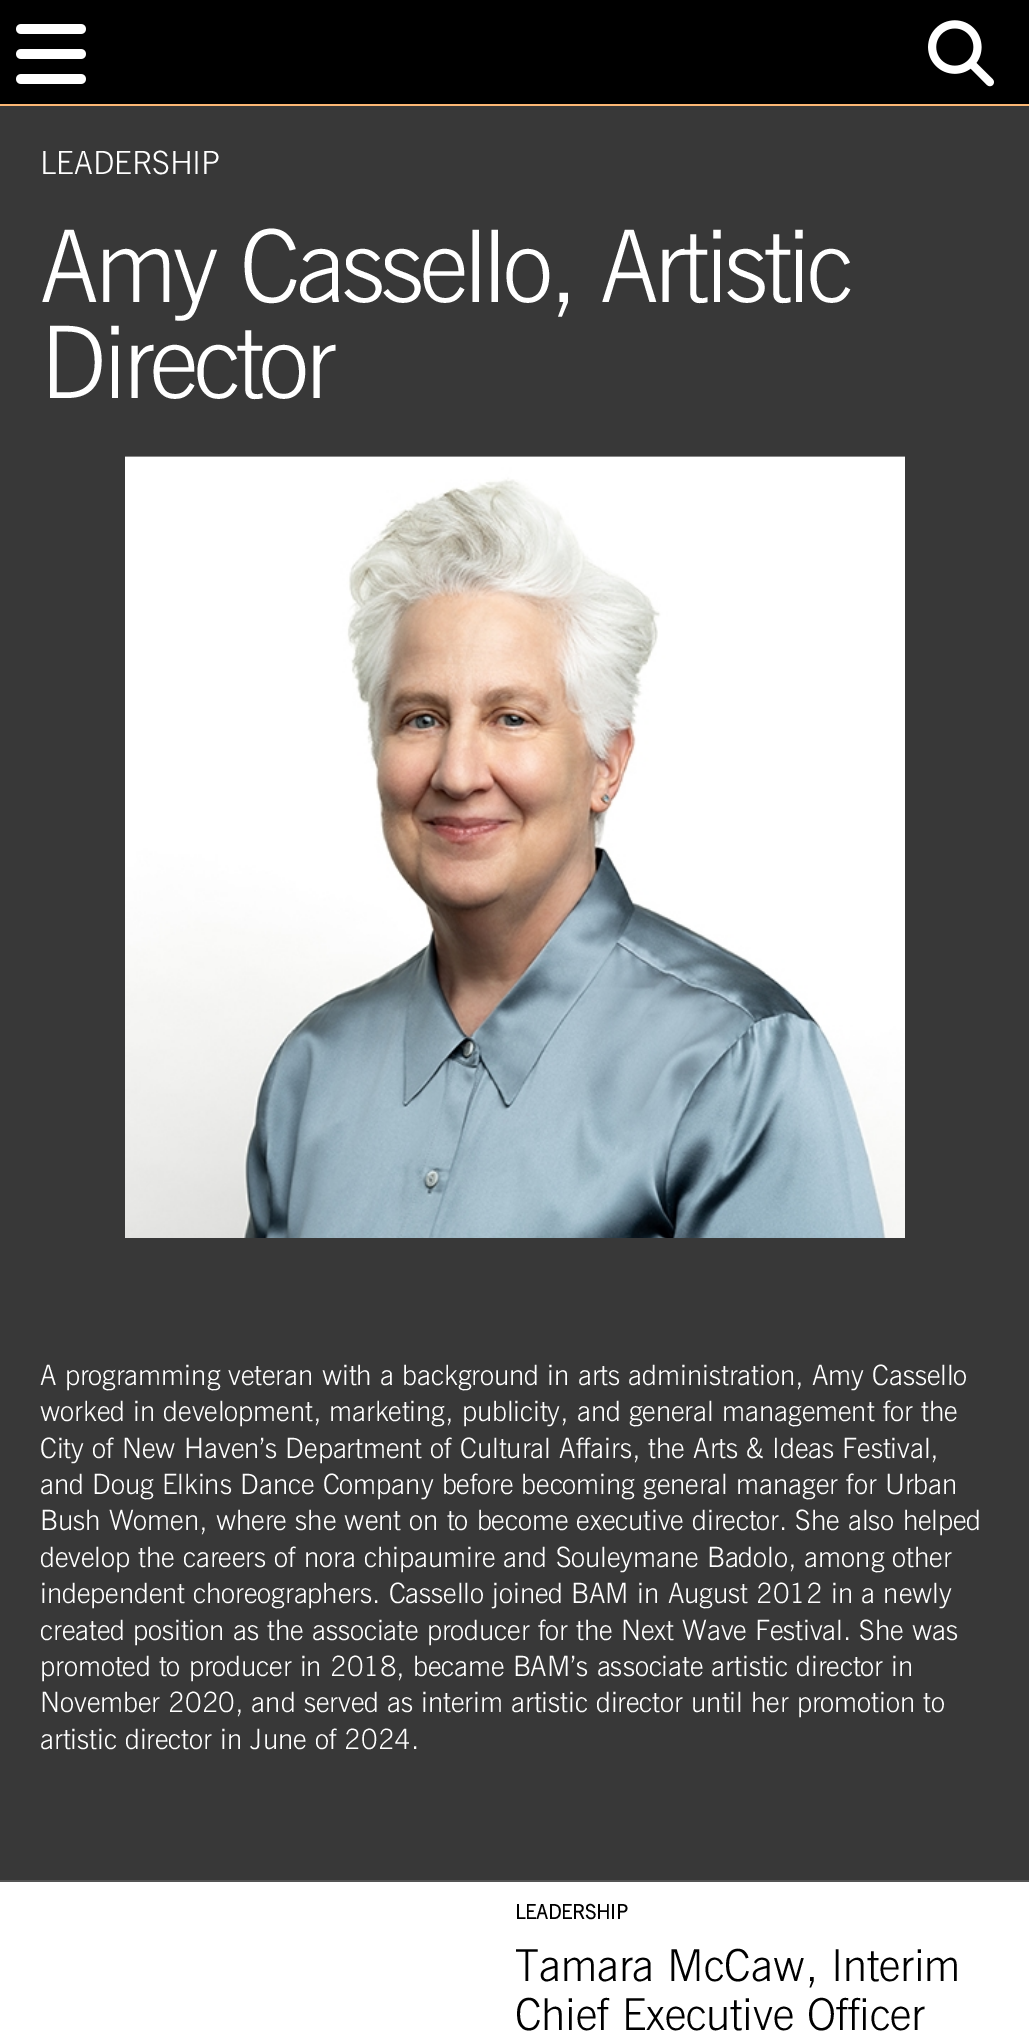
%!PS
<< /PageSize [1029 2031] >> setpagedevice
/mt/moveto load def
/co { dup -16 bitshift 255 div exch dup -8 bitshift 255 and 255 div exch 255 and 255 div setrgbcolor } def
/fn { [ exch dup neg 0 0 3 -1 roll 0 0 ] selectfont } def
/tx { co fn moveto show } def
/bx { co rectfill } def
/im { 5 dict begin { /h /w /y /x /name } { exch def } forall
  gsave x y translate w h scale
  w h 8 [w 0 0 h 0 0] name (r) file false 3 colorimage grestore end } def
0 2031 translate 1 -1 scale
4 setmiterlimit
0 0 1029 2031 16#383838 bx
0 0 1029 104 16#000000 bx
(media/1.raw) 16 24 70 60 im
(media/2.raw) 928 20 66 67 im
0 104 1029 2 16#FBB774 bx
(media/3.raw) 125 456 780 782 im
0 1882 1029 149 16#FFFFFF bx
0 1880 1029 2 16#545454 bx
(LEADERSHIP) 40 174 /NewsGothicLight-Light 32 16#FFFFFF tx
/NewsGothicLight-Light 100 fn
40 302 mt -4 0 (Amy Cassello, Artistic) ashow
40 398 mt -4 0 (Director) ashow
(A programming veteran with a background in arts administration, Amy Cassello) 40 1385 /NewsGothicLight-Light 28 16#FFFFFF tx
(worked in development, marketing, publicity, and general management for the) 40 1421 /NewsGothicLight-Light 28 16#FFFFFF tx
(City of New Haven’s Department of Cultural Affairs, the Arts & Ideas Festival,) 40 1458 /NewsGothicLight-Light 28 16#FFFFFF tx
(and Doug Elkins Dance Company before becoming general manager for Urban) 40 1494 /NewsGothicLight-Light 28 16#FFFFFF tx
(Bush Women, where she went on to become executive director. She also helped) 40 1530 /NewsGothicLight-Light 28 16#FFFFFF tx
(develop the careers of nora chipaumire and Souleymane Badolo, among other) 40 1567 /NewsGothicLight-Light 28 16#FFFFFF tx
(independent choreographers. Cassello joined BAM in August 2012 in a newly) 40 1603 /NewsGothicLight-Light 28 16#FFFFFF tx
(created position as the associate producer for the Next Wave Festival. She was) 40 1640 /NewsGothicLight-Light 28 16#FFFFFF tx
(promoted to producer in 2018, became BAM’s associate artistic director in) 40 1676 /NewsGothicLight-Light 28 16#FFFFFF tx
(November 2020, and served as interim artistic director until her promotion to) 40 1712 /NewsGothicLight-Light 28 16#FFFFFF tx
(artistic director in June of 2024.) 40 1749 /NewsGothicLight-Light 28 16#FFFFFF tx
(LEADERSHIP) 515 1919 /NewsGothicLight-Bold 20 16#000000 tx
(Tamara McCaw, Interim) 515 1981 /NewsGothicLight-Light 44 16#000000 tx
(Chief Executive Officer) 515 2030 /NewsGothicLight-Light 44 16#000000 tx
showpage
